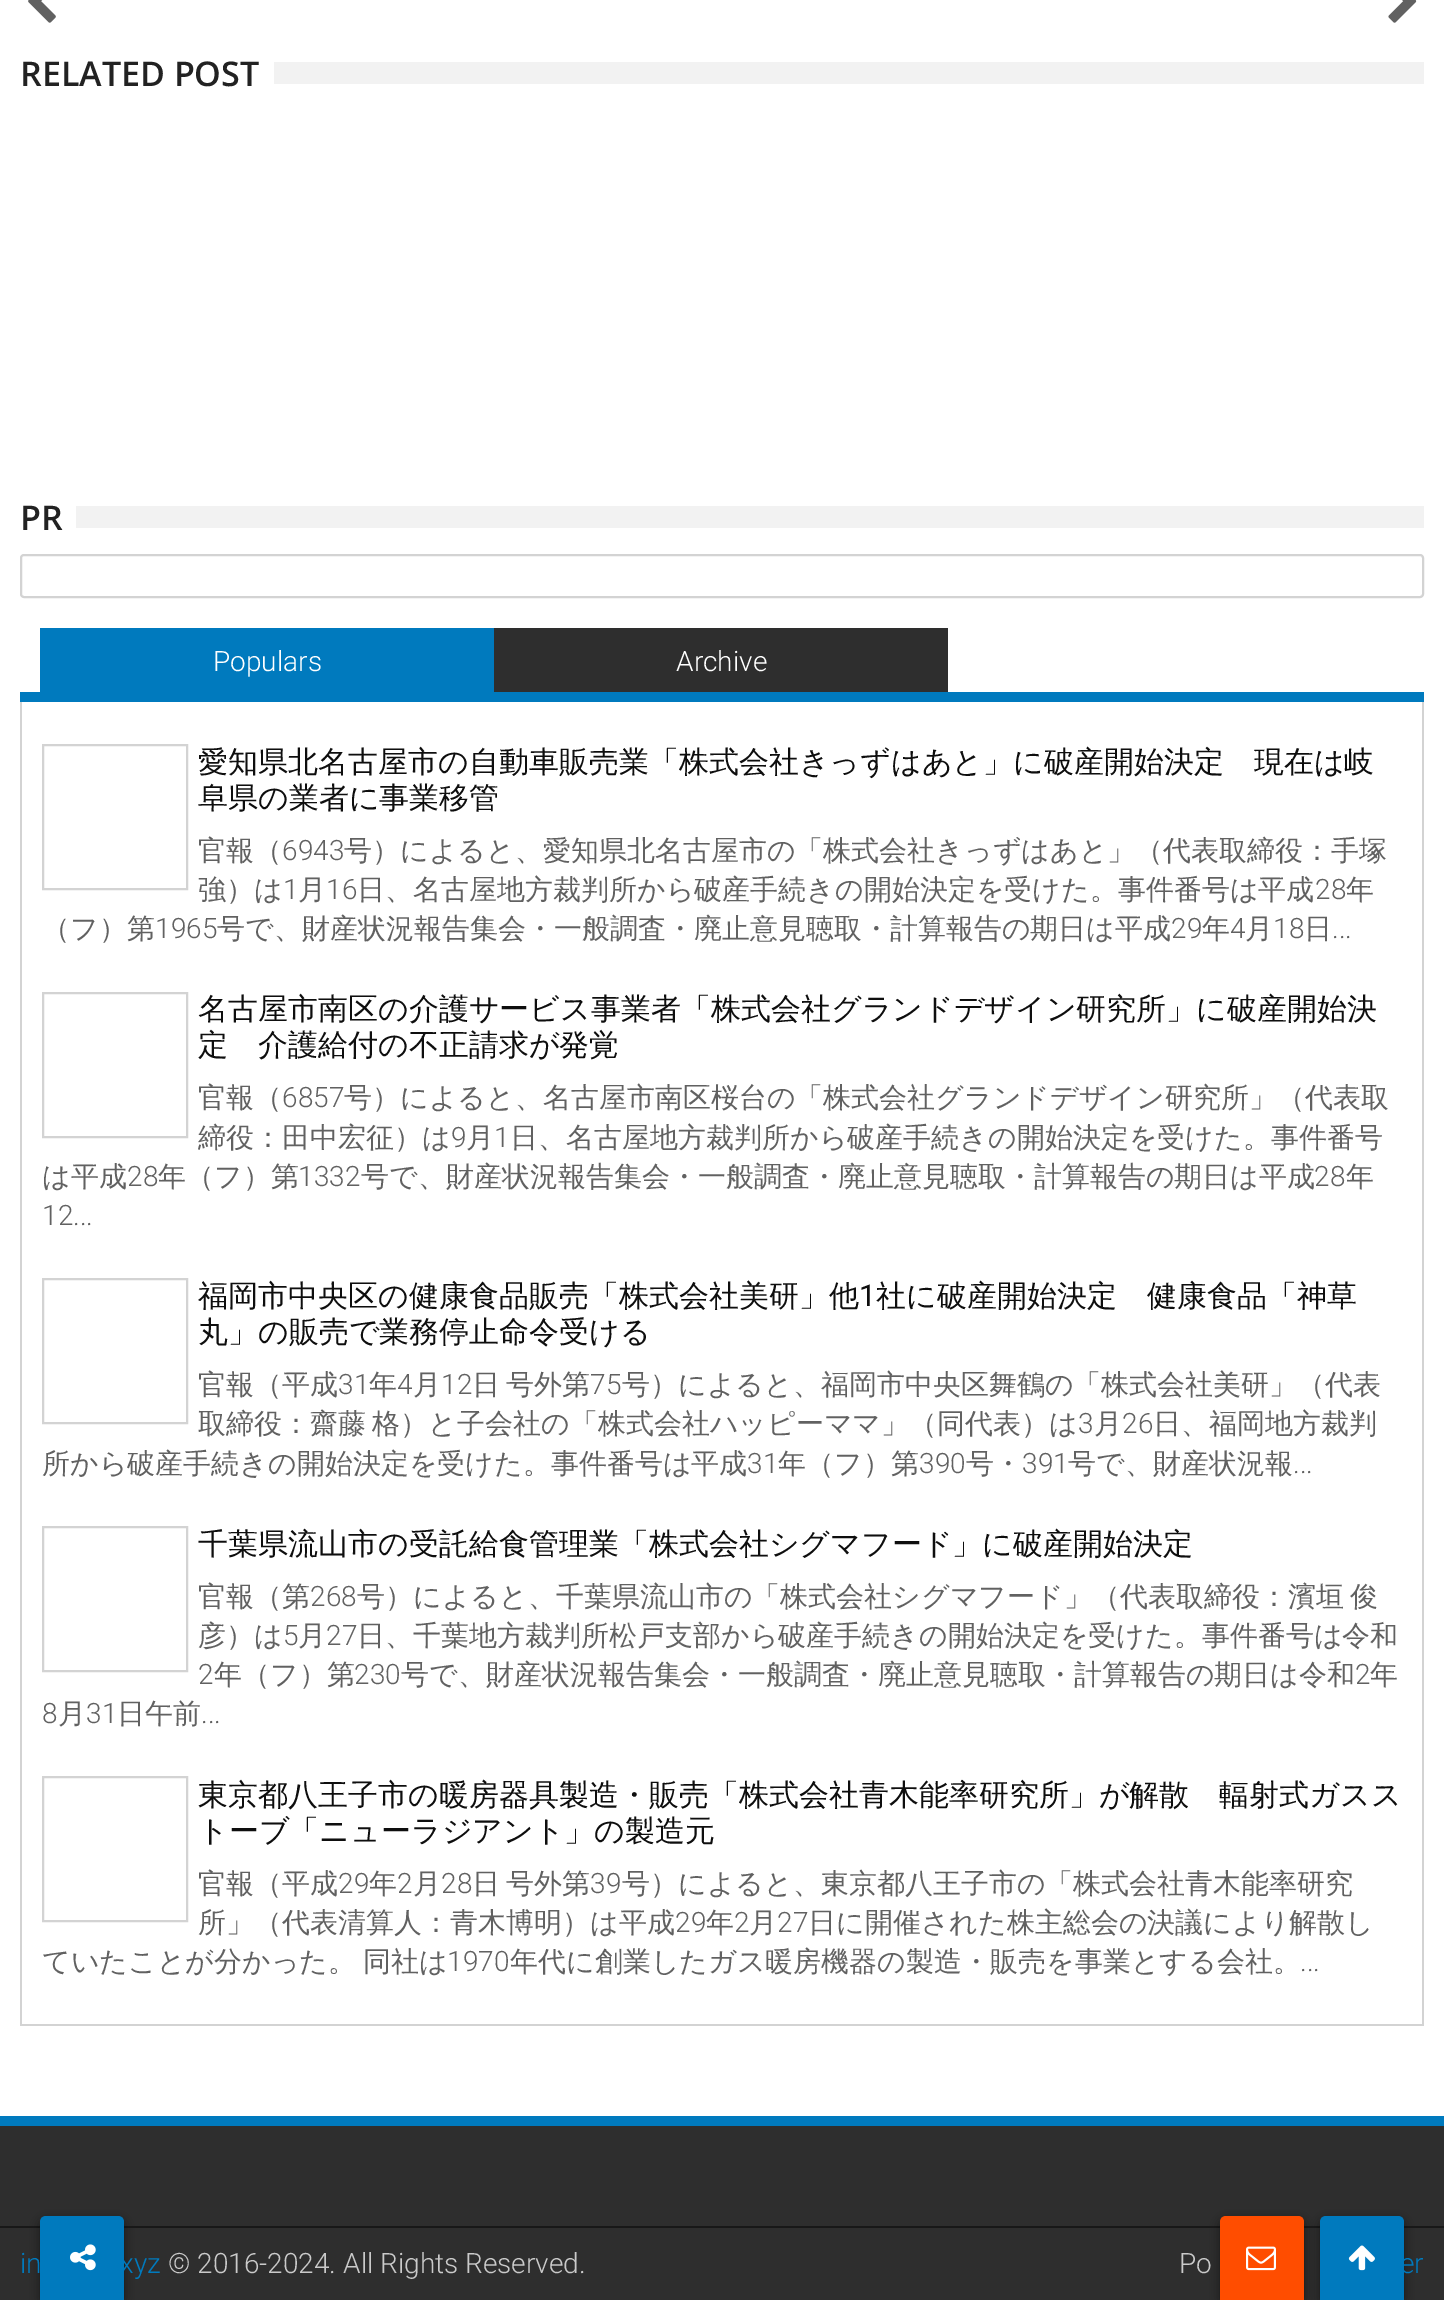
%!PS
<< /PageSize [1444 2300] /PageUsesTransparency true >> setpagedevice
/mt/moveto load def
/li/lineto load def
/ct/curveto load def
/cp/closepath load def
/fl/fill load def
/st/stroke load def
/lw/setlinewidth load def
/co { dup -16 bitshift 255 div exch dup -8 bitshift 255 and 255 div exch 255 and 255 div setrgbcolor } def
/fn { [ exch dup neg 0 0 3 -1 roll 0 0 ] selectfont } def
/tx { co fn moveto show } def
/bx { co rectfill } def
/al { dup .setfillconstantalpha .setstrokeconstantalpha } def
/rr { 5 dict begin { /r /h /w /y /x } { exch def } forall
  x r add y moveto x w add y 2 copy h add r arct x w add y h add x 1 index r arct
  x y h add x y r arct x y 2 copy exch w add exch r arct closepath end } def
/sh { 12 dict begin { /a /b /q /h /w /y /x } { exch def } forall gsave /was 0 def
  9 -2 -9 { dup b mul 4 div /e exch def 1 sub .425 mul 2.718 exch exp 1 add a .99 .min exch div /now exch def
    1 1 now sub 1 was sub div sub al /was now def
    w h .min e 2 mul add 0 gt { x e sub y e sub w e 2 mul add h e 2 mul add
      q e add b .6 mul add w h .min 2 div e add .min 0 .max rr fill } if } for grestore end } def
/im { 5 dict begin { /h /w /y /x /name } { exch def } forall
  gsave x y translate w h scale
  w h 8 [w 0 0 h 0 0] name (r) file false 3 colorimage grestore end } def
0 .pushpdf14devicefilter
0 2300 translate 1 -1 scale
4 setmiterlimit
0 0 1444 2300 16#FFFFFF bx
(media/1.raw) 28 0 28 23 im
(media/2.raw) 1388 0 29 23 im
274 62 1150 22 16#F2F2F2 bx
76 506 1348 22 16#F2F2F2 bx
16#D3D3D3 co
2 lw
21 555 1402 42 3 rr st
20 692 1404 10 16#007ABE bx
40 628 454 64 16#007ABE bx
494 628 454 64 16#2E2E2E bx
1422 702 2 1324 16#D3D3D3 bx
20 2024 1404 2 16#D3D3D3 bx
20 702 2 1324 16#D3D3D3 bx
43 745 144 144 rectstroke
43 993 144 144 rectstroke
43 1279 144 144 rectstroke
43 1527 144 144 rectstroke
43 1777 144 144 rectstroke
0 2126 1444 174 16#2E2E2E bx
0 2226 1444 2 16#181818 bx
16#000000 co
1220 2220 84 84 6 5 .5 sh
16#FF4D00 co
1226 2216 mt 1298 2216 li 1301.5 2216 1304 2218.5 1304 2222 ct 1304 2300 li 1220 2300 li 1220 2222 li 1220 2218.5 1222.5 2216 1226 2216 ct cp fl
(media/3.raw) 1246 2246 30 25 im
16#000000 co
1320 2220 84 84 6 5 .5 sh
16#007ABE co
1326 2216 mt 1398 2216 li 1401.5 2216 1404 2218.5 1404 2222 ct 1404 2300 li 1320 2300 li 1320 2222 li 1320 2218.5 1322.5 2216 1326 2216 ct cp fl
(media/4.raw) 1348 2245 27 26 im
0 2116 1444 10 16#007ABE bx
16#000000 co
40 2220 84 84 6 5 .5 sh
16#007ABE co
46 2216 mt 118 2216 li 121.5 2216 124 2218.5 124 2222 ct 124 2300 li 40 2300 li 40 2222 li 40 2218.5 42.5 2216 46 2216 ct cp fl
(media/5.raw) 70 2244 26 27 im
(RELATED POST) 20 86 /OpenSans-SemiBold 34 16#222222 tx
(PR) 20 530 /OpenSans-SemiBold 34 16#222222 tx
(Populars) 213 671 /Roboto-Light 28 16#FFFFFF tx
(Archive) 676 671 /Roboto-Light 28 16#FFFFFF tx
(愛知県北名古屋市の自動車販売業「株式会社きっずはあと」に破産開始決定　現在は岐) 198 772 /WenQuanYiZenHei-Medium 30 16#0E0E0E tx
(阜県の業者に事業移管) 198 808 /WenQuanYiZenHei-Medium 30 16#0E0E0E tx
(官報（) 198 860 /WenQuanYiZenHei-Medium 28 16#616161 tx
(6943) 282 860 /Roboto-Light 28 16#616161 tx
(号）によると、愛知県北名古屋市の「株式会社きっずはあと」（代表取締役：手塚) 344 860 /WenQuanYiZenHei-Medium 28 16#616161 tx
(強）は) 198 899 /WenQuanYiZenHei-Medium 28 16#616161 tx
(1) 283 899 /Roboto-Light 28 16#616161 tx
(月) 298 899 /WenQuanYiZenHei-Medium 28 16#616161 tx
(16) 326 899 /Roboto-Light 28 16#616161 tx
(日、名古屋地方裁判所から破産手続きの開始決定を受けた。事件番号は平成) 357 899 /WenQuanYiZenHei-Medium 28 16#616161 tx
(28) 1315 899 /Roboto-Light 28 16#616161 tx
(年) 1346 899 /WenQuanYiZenHei-Medium 28 16#616161 tx
(（フ）第) 42 938 /WenQuanYiZenHei-Medium 28 16#616161 tx
(1965) 155 938 /Roboto-Light 28 16#616161 tx
(号で、財産状況報告集会・一般調査・廃止意見聴取・計算報告の期日は平成) 217 938 /WenQuanYiZenHei-Medium 28 16#616161 tx
(29) 1171 938 /Roboto-Light 28 16#616161 tx
(年) 1202 938 /WenQuanYiZenHei-Medium 28 16#616161 tx
(4) 1230 938 /Roboto-Light 28 16#616161 tx
(月) 1245 938 /WenQuanYiZenHei-Medium 28 16#616161 tx
(18) 1273 938 /Roboto-Light 28 16#616161 tx
(日) 1304 938 /WenQuanYiZenHei-Medium 28 16#616161 tx
(...) 1332 938 /Roboto-Light 28 16#616161 tx
(名古屋市南区の介護サービス事業者「株式会社グランドデザイン研究所」に破産開始決) 198 1019 /WenQuanYiZenHei-Medium 30 16#0E0E0E tx
(定　介護給付の不正請求が発覚) 198 1055 /WenQuanYiZenHei-Medium 30 16#0E0E0E tx
(官報（) 198 1107 /WenQuanYiZenHei-Medium 28 16#616161 tx
(6857) 282 1107 /Roboto-Light 28 16#616161 tx
(号）によると、名古屋市南区桜台の「株式会社グランドデザイン研究所」（代表取) 344 1107 /WenQuanYiZenHei-Medium 28 16#616161 tx
(締役：田中宏征）は) 198 1147 /WenQuanYiZenHei-Medium 28 16#616161 tx
(9) 451 1147 /Roboto-Light 28 16#616161 tx
(月) 466 1147 /WenQuanYiZenHei-Medium 28 16#616161 tx
(1) 494 1147 /Roboto-Light 28 16#616161 tx
(日、名古屋地方裁判所から破産手続きの開始決定を受けた。事件番号) 510 1147 /WenQuanYiZenHei-Medium 28 16#616161 tx
(は平成) 42 1186 /WenQuanYiZenHei-Medium 28 16#616161 tx
(28) 127 1186 /Roboto-Light 28 16#616161 tx
(年（フ）第) 158 1186 /WenQuanYiZenHei-Medium 28 16#616161 tx
(1332) 298 1186 /Roboto-Light 28 16#616161 tx
(号で、財産状況報告集会・一般調査・廃止意見聴取・計算報告の期日は平成) 361 1186 /WenQuanYiZenHei-Medium 28 16#616161 tx
(28) 1314 1186 /Roboto-Light 28 16#616161 tx
(年) 1346 1186 /WenQuanYiZenHei-Medium 28 16#616161 tx
(12...) 42 1225 /Roboto-Light 28 16#616161 tx
(福岡市中央区の健康食品販売「株式会社美研」他) 198 1306 /WenQuanYiZenHei-Medium 30 16#0E0E0E tx
(1) 859 1306 /Roboto-Regular 30 16#0E0E0E tx
(社に破産開始決定　健康食品「神草) 876 1306 /WenQuanYiZenHei-Medium 30 16#0E0E0E tx
(丸」の販売で業務停止命令受ける) 198 1342 /WenQuanYiZenHei-Medium 30 16#0E0E0E tx
(官報（平成) 198 1394 /WenQuanYiZenHei-Medium 28 16#616161 tx
(31) 338 1394 /Roboto-Light 28 16#616161 tx
(年) 369 1394 /WenQuanYiZenHei-Medium 28 16#616161 tx
(4) 397 1394 /Roboto-Light 28 16#616161 tx
(月) 413 1394 /WenQuanYiZenHei-Medium 28 16#616161 tx
(12) 441 1394 /Roboto-Light 28 16#616161 tx
/WenQuanYiZenHei-Medium 28 fn
472 1394 mt -2 0 32 (日 号外第) widthshow
(75) 590 1394 /Roboto-Light 28 16#616161 tx
(号）によると、福岡市中央区舞鶴の「株式会社美研」（代表) 622 1394 /WenQuanYiZenHei-Medium 28 16#616161 tx
198 1433 mt -2 0 32 (取締役：齋藤 格）と子会社の「株式会社ハッピーママ」（同代表）は) widthshow
(3) 1078 1433 /Roboto-Light 28 16#616161 tx
(月) 1094 1433 /WenQuanYiZenHei-Medium 28 16#616161 tx
(26) 1122 1433 /Roboto-Light 28 16#616161 tx
(日、福岡地方裁判) 1153 1433 /WenQuanYiZenHei-Medium 28 16#616161 tx
(所から破産手続きの開始決定を受けた。事件番号は平成) 42 1473 /WenQuanYiZenHei-Medium 28 16#616161 tx
(31) 747 1473 /Roboto-Light 28 16#616161 tx
(年（フ）第) 778 1473 /WenQuanYiZenHei-Medium 28 16#616161 tx
(390) 919 1473 /Roboto-Light 28 16#616161 tx
(号・) 966 1473 /WenQuanYiZenHei-Medium 28 16#616161 tx
(391) 1022 1473 /Roboto-Light 28 16#616161 tx
(号で、財産状況報) 1068 1473 /WenQuanYiZenHei-Medium 28 16#616161 tx
(...) 1293 1473 /Roboto-Light 28 16#616161 tx
(千葉県流山市の受託給食管理業「株式会社シグマフード」に破産開始決定) 198 1554 /WenQuanYiZenHei-Medium 30 16#0E0E0E tx
(官報（第) 198 1606 /WenQuanYiZenHei-Medium 28 16#616161 tx
(268) 310 1606 /Roboto-Light 28 16#616161 tx
/WenQuanYiZenHei-Medium 28 fn
357 1606 mt -2 0 32 (号）によると、千葉県流山市の「株式会社シグマフード」（代表取締役：濱垣 俊) widthshow
(彦）は) 198 1645 /WenQuanYiZenHei-Medium 28 16#616161 tx
(5) 283 1645 /Roboto-Light 28 16#616161 tx
(月) 298 1645 /WenQuanYiZenHei-Medium 28 16#616161 tx
(27) 326 1645 /Roboto-Light 28 16#616161 tx
(日、千葉地方裁判所松戸支部から破産手続きの開始決定を受けた。事件番号は令和) 357 1645 /WenQuanYiZenHei-Medium 28 16#616161 tx
(2) 198 1684 /Roboto-Light 28 16#616161 tx
(年（フ）第) 214 1684 /WenQuanYiZenHei-Medium 28 16#616161 tx
(230) 354 1684 /Roboto-Light 28 16#616161 tx
(号で、財産状況報告集会・一般調査・廃止意見聴取・計算報告の期日は令和) 401 1684 /WenQuanYiZenHei-Medium 28 16#616161 tx
(2) 1355 1684 /Roboto-Light 28 16#616161 tx
(年) 1370 1684 /WenQuanYiZenHei-Medium 28 16#616161 tx
(8) 42 1723 /Roboto-Light 28 16#616161 tx
(月) 58 1723 /WenQuanYiZenHei-Medium 28 16#616161 tx
(31) 86 1723 /Roboto-Light 28 16#616161 tx
(日午前) 117 1723 /WenQuanYiZenHei-Medium 28 16#616161 tx
(...) 201 1723 /Roboto-Light 28 16#616161 tx
(東京都八王子市の暖房器具製造・販売「株式会社青木能率研究所」が解散　輻射式ガスス) 198 1805 /WenQuanYiZenHei-Medium 30 16#0E0E0E tx
(トーブ「ニューラジアント」の製造元) 198 1841 /WenQuanYiZenHei-Medium 30 16#0E0E0E tx
(官報（平成) 198 1893 /WenQuanYiZenHei-Medium 28 16#616161 tx
(29) 338 1893 /Roboto-Light 28 16#616161 tx
(年) 369 1893 /WenQuanYiZenHei-Medium 28 16#616161 tx
(2) 397 1893 /Roboto-Light 28 16#616161 tx
(月) 413 1893 /WenQuanYiZenHei-Medium 28 16#616161 tx
(28) 441 1893 /Roboto-Light 28 16#616161 tx
/WenQuanYiZenHei-Medium 28 fn
472 1893 mt -2 0 32 (日 号外第) widthshow
(39) 590 1893 /Roboto-Light 28 16#616161 tx
(号）によると、東京都八王子市の「株式会社青木能率研究) 622 1893 /WenQuanYiZenHei-Medium 28 16#616161 tx
(所」（代表清算人：青木博明）は平成) 198 1932 /WenQuanYiZenHei-Medium 28 16#616161 tx
(29) 675 1932 /Roboto-Light 28 16#616161 tx
(年) 706 1932 /WenQuanYiZenHei-Medium 28 16#616161 tx
(2) 734 1932 /Roboto-Light 28 16#616161 tx
(月) 749 1932 /WenQuanYiZenHei-Medium 28 16#616161 tx
(27) 777 1932 /Roboto-Light 28 16#616161 tx
(日に開催された株主総会の決議により解散し) 808 1932 /WenQuanYiZenHei-Medium 28 16#616161 tx
(ていたことが分かった。) 42 1971 /WenQuanYiZenHei-Medium 28 16#616161 tx
(同社は) 363 1971 /WenQuanYiZenHei-Medium 28 16#616161 tx
(1970) 447 1971 /Roboto-Light 28 16#616161 tx
(年代に創業したガス暖房機器の製造・販売を事業とする会社。) 510 1971 /WenQuanYiZenHei-Medium 28 16#616161 tx
(...) 1300 1971 /Roboto-Light 28 16#616161 tx
(in) 20 2273 /Roboto-Light 28 16#007ABE tx
(xyz) 120 2273 /Roboto-Light 28 16#007ABE tx
(© 2016-2024. All Rights Reserved.) 168 2273 /Roboto-Light 28 16#CACACA tx
(Po) 1179 2273 /Roboto-Light 28 16#CACACA tx
(er) 1400 2273 /Roboto-Light 28 16#007ABE tx
.poppdf14devicefilter showpage
